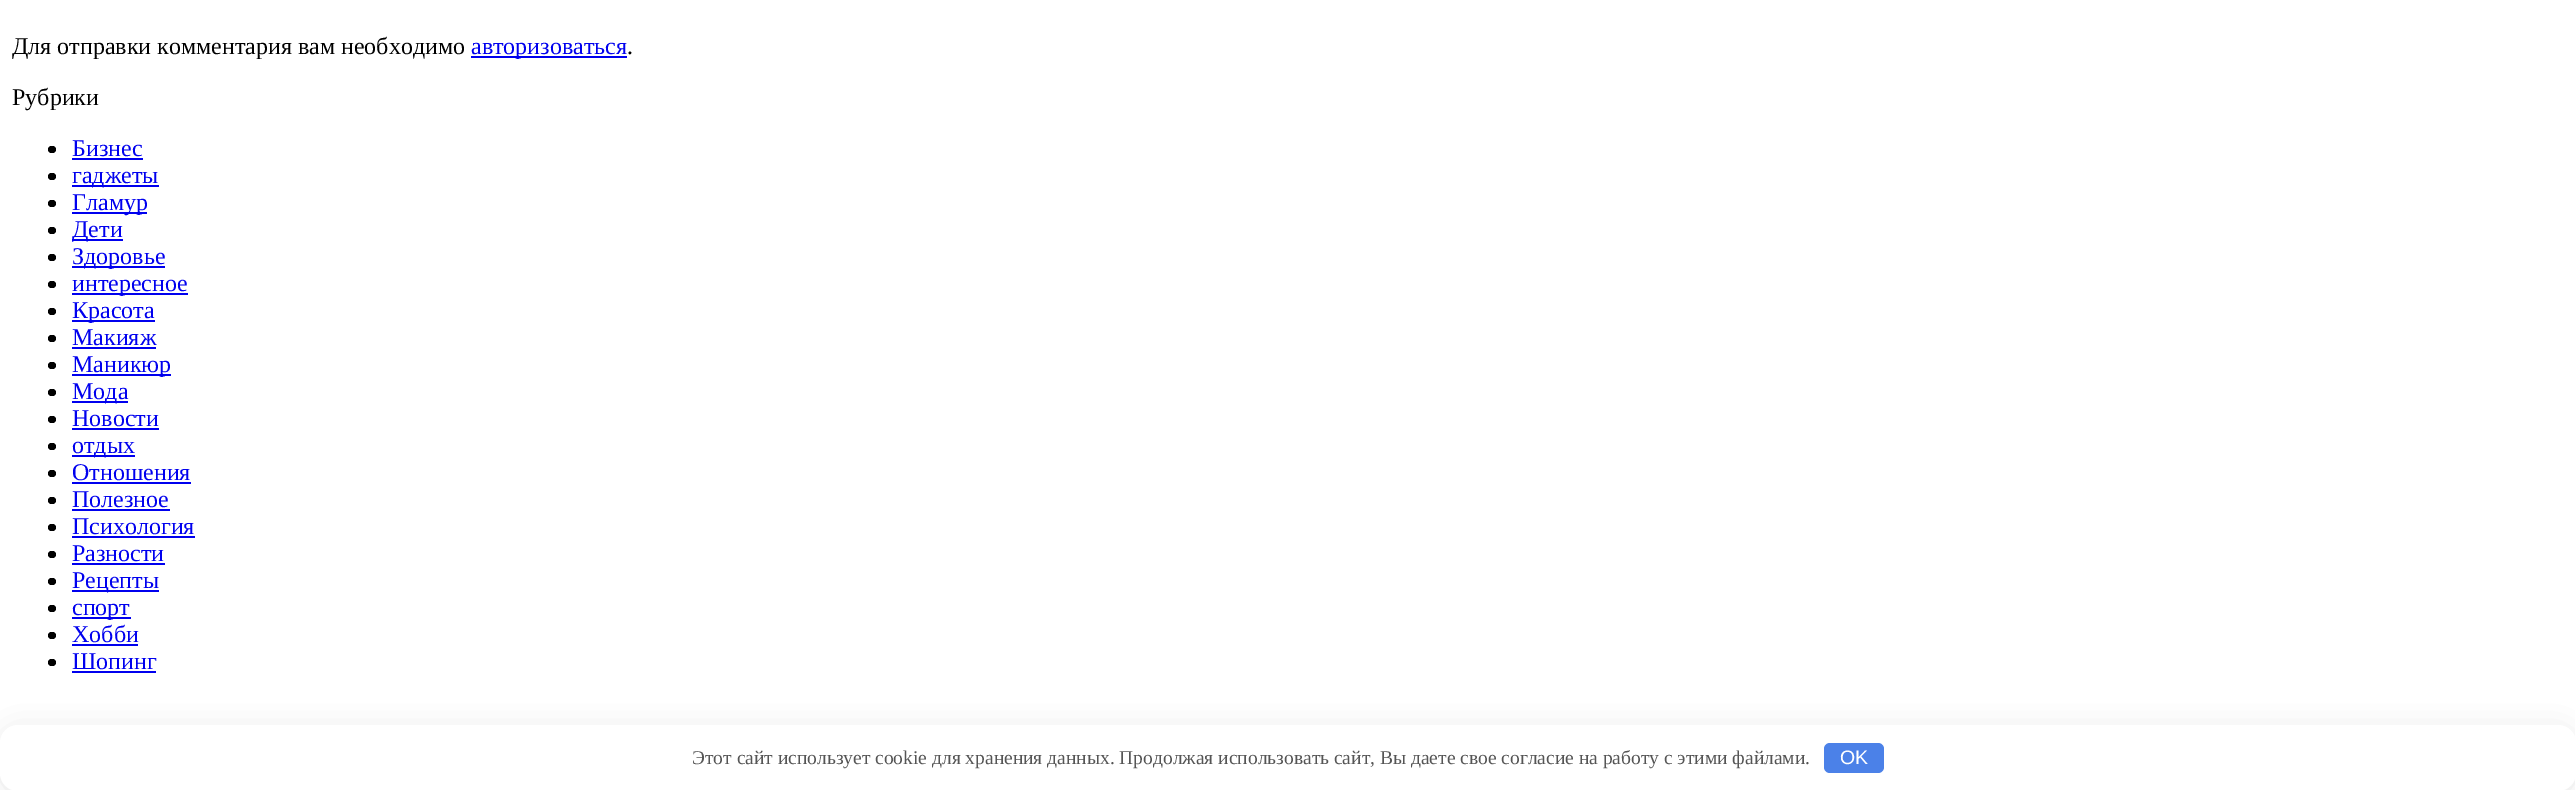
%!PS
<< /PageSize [2575 790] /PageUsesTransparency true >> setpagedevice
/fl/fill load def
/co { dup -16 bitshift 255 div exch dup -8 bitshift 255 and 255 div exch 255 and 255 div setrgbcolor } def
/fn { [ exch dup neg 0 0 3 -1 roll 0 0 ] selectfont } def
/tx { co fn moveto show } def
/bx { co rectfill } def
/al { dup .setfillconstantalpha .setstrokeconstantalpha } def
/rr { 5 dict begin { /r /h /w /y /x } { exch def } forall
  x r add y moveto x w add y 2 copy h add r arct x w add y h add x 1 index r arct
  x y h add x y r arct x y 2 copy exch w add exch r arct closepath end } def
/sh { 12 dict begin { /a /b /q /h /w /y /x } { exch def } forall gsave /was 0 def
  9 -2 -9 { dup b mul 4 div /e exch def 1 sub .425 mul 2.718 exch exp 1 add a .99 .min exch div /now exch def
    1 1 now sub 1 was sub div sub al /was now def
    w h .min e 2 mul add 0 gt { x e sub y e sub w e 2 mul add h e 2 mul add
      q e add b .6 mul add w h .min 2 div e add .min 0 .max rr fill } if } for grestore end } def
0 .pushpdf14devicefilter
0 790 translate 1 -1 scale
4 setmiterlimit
0 0 2575 790 16#FFFFFF bx
471 56 156 2 16#0000EE bx
16#000000 co
48 146 8 7 3.5 rr fl
72 158 71 2 16#0000EE bx
16#000000 co
48 173 8 7 3.5 rr fl
72 185 87 2 16#0000EE bx
16#000000 co
48 200 8 7 3.5 rr fl
72 212 75 2 16#0000EE bx
16#000000 co
48 227 8 7 3.5 rr fl
72 239 51 2 16#0000EE bx
16#000000 co
48 254 8 7 3.5 rr fl
72 266 93 2 16#0000EE bx
16#000000 co
48 281 8 7 3.5 rr fl
72 293 116 2 16#0000EE bx
16#000000 co
48 308 8 7 3.5 rr fl
72 320 83 2 16#0000EE bx
16#000000 co
48 335 8 7 3.5 rr fl
72 347 84 2 16#0000EE bx
16#000000 co
48 362 8 7 3.5 rr fl
72 374 99 2 16#0000EE bx
16#000000 co
48 389 8 7 3.5 rr fl
72 401 56 2 16#0000EE bx
16#000000 co
48 416 8 7 3.5 rr fl
72 428 87 2 16#0000EE bx
16#000000 co
48 443 8 7 3.5 rr fl
72 455 63 2 16#0000EE bx
16#000000 co
48 470 8 7 3.5 rr fl
72 482 119 2 16#0000EE bx
16#000000 co
48 497 8 7 3.5 rr fl
72 509 98 2 16#0000EE bx
16#000000 co
48 524 8 7 3.5 rr fl
72 536 123 2 16#0000EE bx
16#000000 co
48 551 8 7 3.5 rr fl
72 563 93 2 16#0000EE bx
16#000000 co
48 578 8 7 3.5 rr fl
72 590 87 2 16#0000EE bx
16#000000 co
48 605 8 7 3.5 rr fl
72 617 59 2 16#0000EE bx
16#000000 co
48 632 8 7 3.5 rr fl
72 644 66 2 16#0000EE bx
16#000000 co
48 659 8 7 3.5 rr fl
72 671 84 2 16#0000EE bx
16#292C38 co
8 737 2560 51 11 15 .2 sh
16#FFFFFF co
0 725 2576 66 18 rr fl
16#4B81E8 co
1824 743 60 30 6 rr fl
(Для отправки комментария вам необходимо) 12 54 /LiberationSerif-Regular 24 16#000000 tx
(авторизоваться) 471 54 /LiberationSerif-Regular 24 16#0000EE tx
(.) 627 54 /LiberationSerif-Regular 24 16#000000 tx
(Рубрики) 12 105 /LiberationSerif-Regular 24 16#000000 tx
(Бизнес) 72 156 /LiberationSerif-Regular 24 16#0000EE tx
(гаджеты) 72 183 /LiberationSerif-Regular 24 16#0000EE tx
(Гламур) 72 210 /LiberationSerif-Regular 24 16#0000EE tx
(Дети) 72 237 /LiberationSerif-Regular 24 16#0000EE tx
(Здоровье) 72 264 /LiberationSerif-Regular 24 16#0000EE tx
(интересное) 72 291 /LiberationSerif-Regular 24 16#0000EE tx
(Красота) 72 318 /LiberationSerif-Regular 24 16#0000EE tx
(Макияж) 72 345 /LiberationSerif-Regular 24 16#0000EE tx
(Маникюр) 72 372 /LiberationSerif-Regular 24 16#0000EE tx
(Мода) 72 399 /LiberationSerif-Regular 24 16#0000EE tx
(Новости) 72 426 /LiberationSerif-Regular 24 16#0000EE tx
(отдых) 72 453 /LiberationSerif-Regular 24 16#0000EE tx
(Отношения) 72 480 /LiberationSerif-Regular 24 16#0000EE tx
(Полезное) 72 507 /LiberationSerif-Regular 24 16#0000EE tx
(Психология) 72 534 /LiberationSerif-Regular 24 16#0000EE tx
(Разности) 72 561 /LiberationSerif-Regular 24 16#0000EE tx
(Рецепты) 72 588 /LiberationSerif-Regular 24 16#0000EE tx
(спорт) 72 615 /LiberationSerif-Regular 24 16#0000EE tx
(Хобби) 72 642 /LiberationSerif-Regular 24 16#0000EE tx
(Шопинг) 72 669 /LiberationSerif-Regular 24 16#0000EE tx
(Этот сайт использует cookie для хранения данных. Продолжая использовать сайт, Вы даете свое согласие на работу с этими файлами.) 692 764 /LiberationSerif-Regular 19.5 16#555555 tx
(OK) 1840 764 /LiberationSans-Regular 19.5 16#FFFFFF tx
.poppdf14devicefilter showpage
